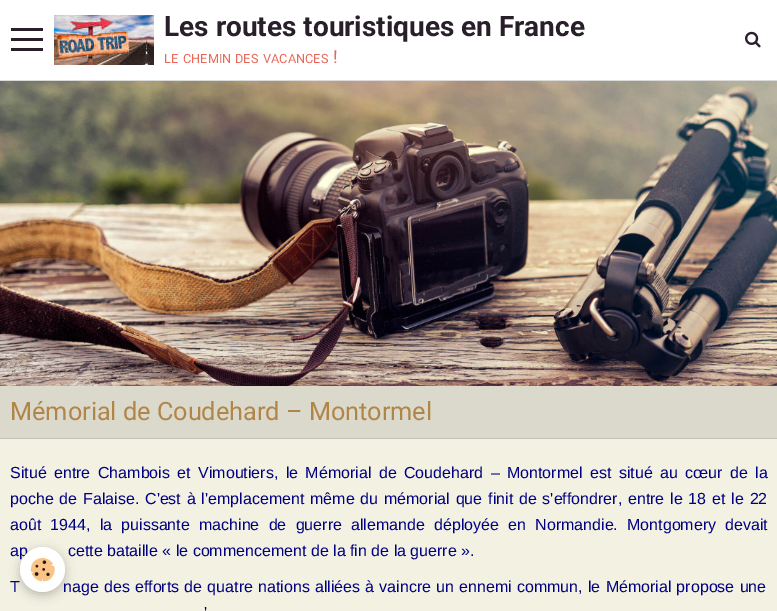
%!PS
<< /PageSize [777 611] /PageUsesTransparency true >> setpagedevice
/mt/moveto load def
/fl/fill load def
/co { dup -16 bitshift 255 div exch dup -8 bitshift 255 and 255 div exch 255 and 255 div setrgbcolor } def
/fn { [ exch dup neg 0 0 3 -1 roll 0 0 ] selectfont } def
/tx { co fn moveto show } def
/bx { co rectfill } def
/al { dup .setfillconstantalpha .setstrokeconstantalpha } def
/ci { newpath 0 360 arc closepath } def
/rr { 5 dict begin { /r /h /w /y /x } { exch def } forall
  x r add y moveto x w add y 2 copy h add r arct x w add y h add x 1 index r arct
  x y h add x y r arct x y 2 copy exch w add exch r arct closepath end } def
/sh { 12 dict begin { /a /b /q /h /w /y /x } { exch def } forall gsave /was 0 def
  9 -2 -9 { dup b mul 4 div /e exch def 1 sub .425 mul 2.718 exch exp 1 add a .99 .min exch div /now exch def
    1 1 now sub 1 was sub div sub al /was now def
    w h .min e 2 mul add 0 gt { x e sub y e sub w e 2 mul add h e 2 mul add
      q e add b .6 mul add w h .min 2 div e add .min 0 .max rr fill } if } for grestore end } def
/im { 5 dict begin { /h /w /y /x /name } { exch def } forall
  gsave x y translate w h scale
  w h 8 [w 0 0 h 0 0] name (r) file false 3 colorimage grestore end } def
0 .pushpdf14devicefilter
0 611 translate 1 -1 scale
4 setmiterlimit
0 0 777 611 16#F3F1E2 bx
0 0 777 80 16#FFFFFF bx
0 80 777 1 16#DBDBDB bx
11 38 32 3 16#281F2B bx
11 28 32 3 16#281F2B bx
11 48 32 3 16#281F2B bx
(media/1.raw) 54 15 100 50 im
(media/2.raw) 745 31 16 17 im
(media/3.raw) 0 81 777 305 im
0 386 777 52 16#DBD9CB bx
0 438 777 1 16#C5C3B7 bx
16#000000 co
20 550 45 45 22.5 5 .24 sh
(Les routes touristiques en France) 164 36 /Roboto-Bold 28 16#281F2B tx
(LE) 164 63 /Roboto-Regular 12.75 16#E7695B tx
(CHEMIN) 183 63 /Roboto-Regular 12.75 16#E7695B tx
(DES) 235 63 /Roboto-Regular 12.75 16#E7695B tx
(VACANCES) 263 63 /Roboto-Regular 12.75 16#E7695B tx
(!) 333 63 /Roboto-Regular 18 16#E7695B tx
(Mémorial de Coudehard – Montormel) 10 420 /Roboto-Regular 25.25 16#B0854A tx
/LiberationSans-Regular 16 fn
16#000080 co
10 478 mt 3 0 32 (Situé entre Chambois et Vimoutiers, le Mémorial de Coudehard – Montormel est situé au cœur de la) widthshow
10 504 mt 1.4 0 32 (poche de Falaise. C'est à l'emplacement même du mémorial que finit de s'effondrer, entre le 18 et le 22) widthshow
10 530 mt 4.75 0 32 (août 1944, la puissante machine de guerre allemande déployée en Normandie. Montgomery devait) widthshow
(ap) 10 556 /LiberationSans-Regular 16 16#000080 tx
(cette bataille « le commencement de la fin de la guerre ».) 68 556 /LiberationSans-Regular 16 16#000080 tx
10 592 mt .75 0 32 (T) widthshow
63 592 mt .75 0 32 (nage des efforts de quatre nations alliées à vaincre un ennemi commun, le Mémorial propose une) widthshow
204 618 mt 3 0 32 (') widthshow
16#FFFFFF co
42.5 569.5 22.5 ci fl
(media/4.raw) 30 557 25 25 im
.poppdf14devicefilter showpage
